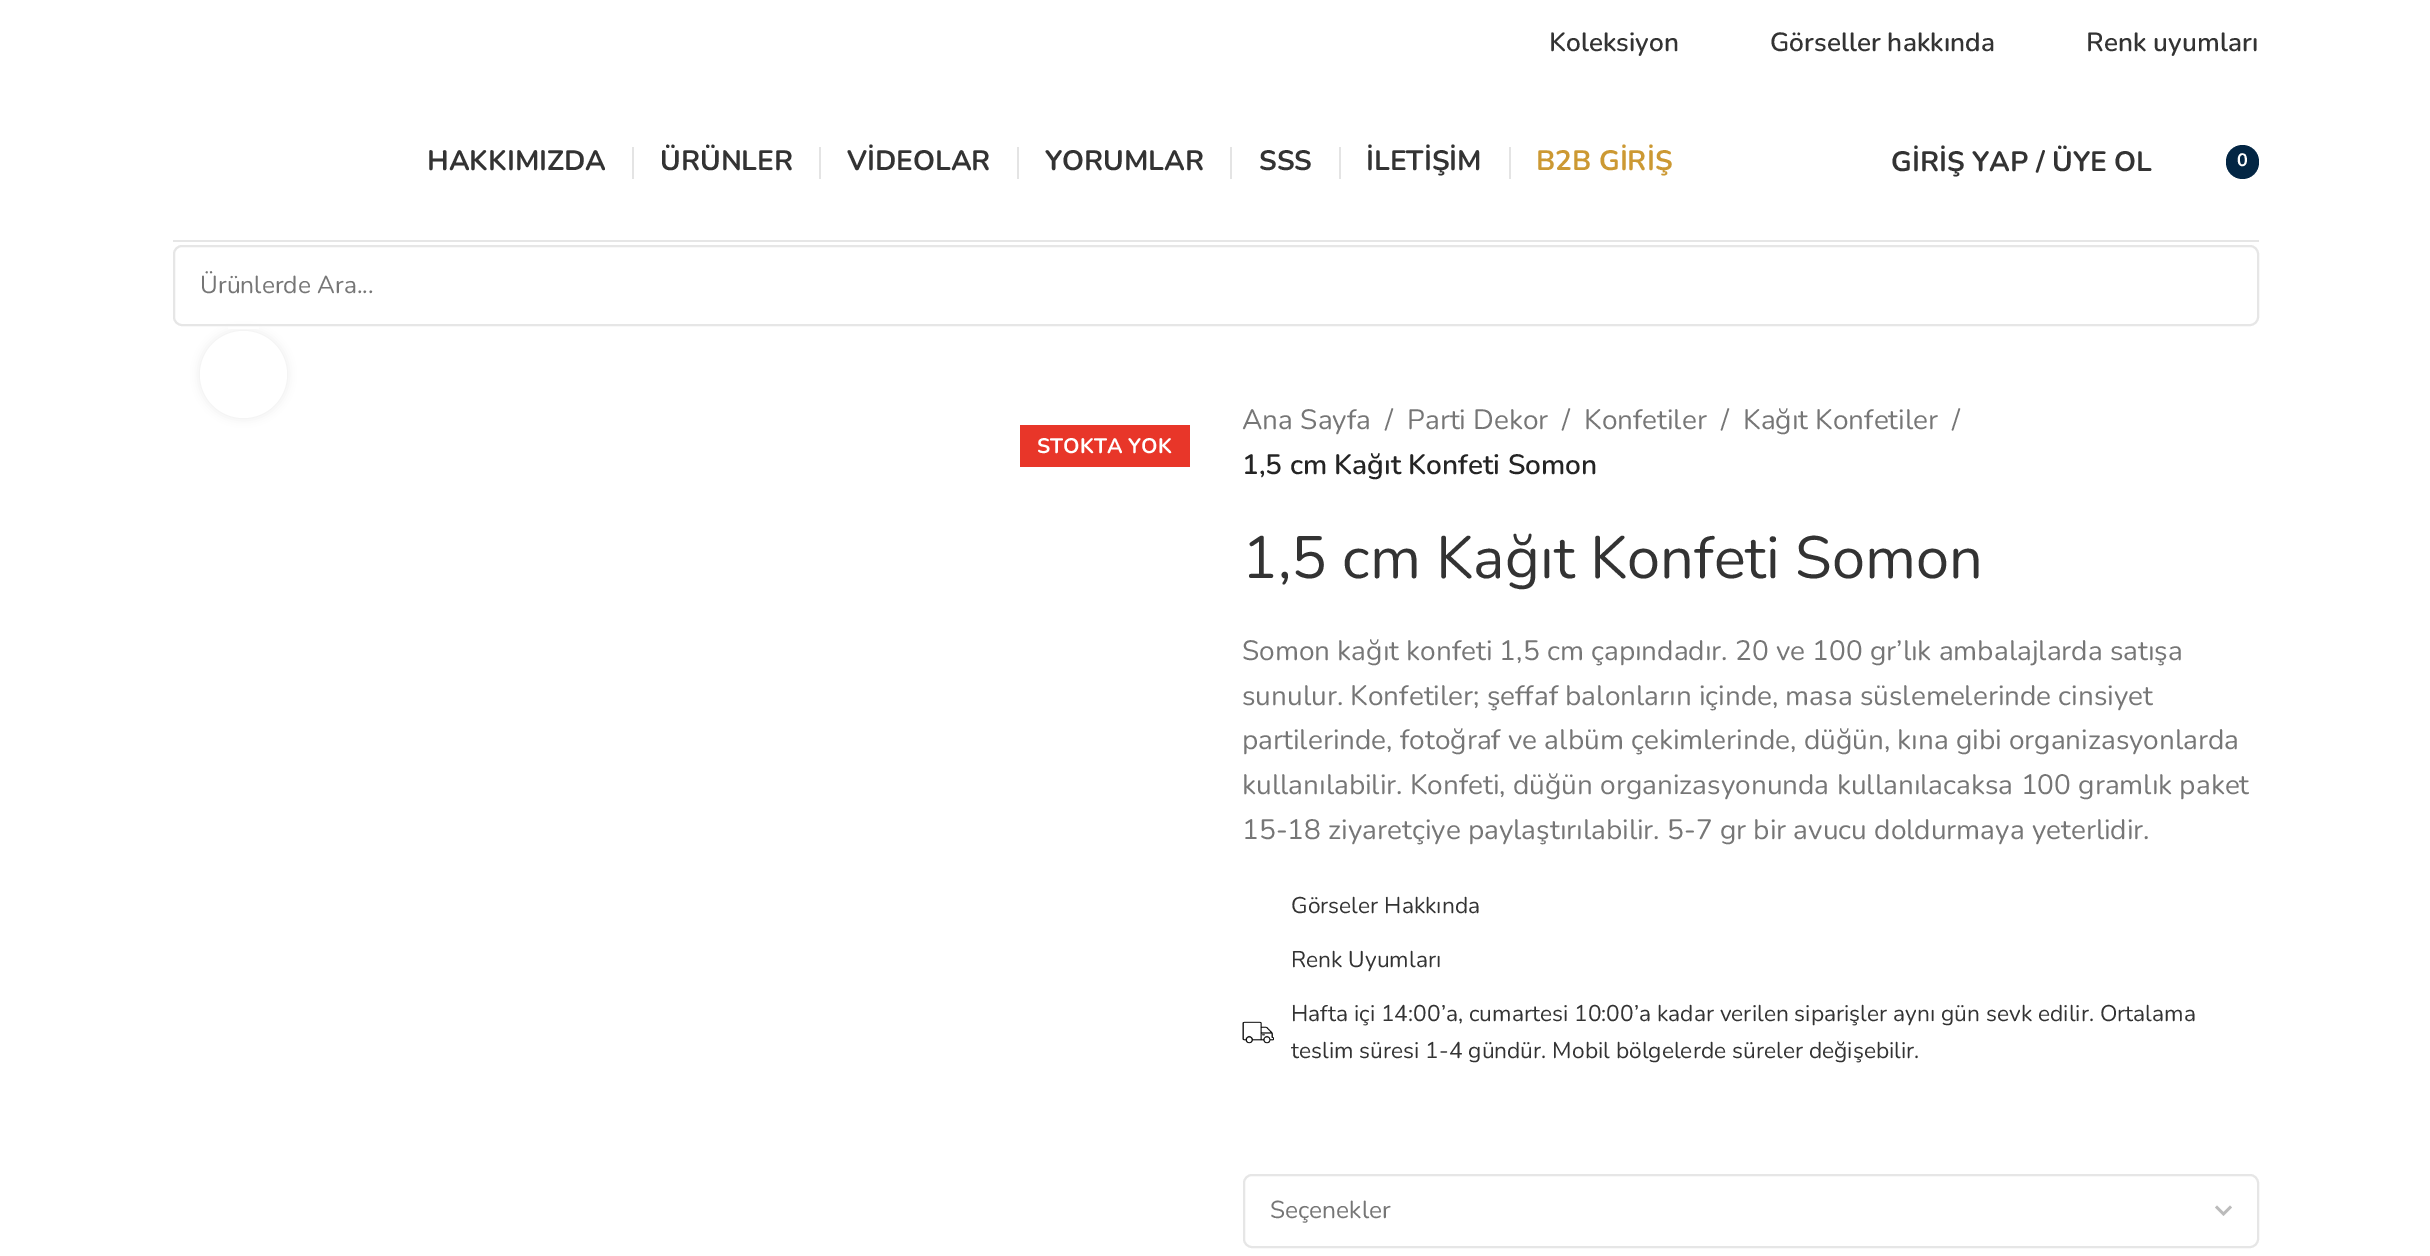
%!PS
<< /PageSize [2430 1256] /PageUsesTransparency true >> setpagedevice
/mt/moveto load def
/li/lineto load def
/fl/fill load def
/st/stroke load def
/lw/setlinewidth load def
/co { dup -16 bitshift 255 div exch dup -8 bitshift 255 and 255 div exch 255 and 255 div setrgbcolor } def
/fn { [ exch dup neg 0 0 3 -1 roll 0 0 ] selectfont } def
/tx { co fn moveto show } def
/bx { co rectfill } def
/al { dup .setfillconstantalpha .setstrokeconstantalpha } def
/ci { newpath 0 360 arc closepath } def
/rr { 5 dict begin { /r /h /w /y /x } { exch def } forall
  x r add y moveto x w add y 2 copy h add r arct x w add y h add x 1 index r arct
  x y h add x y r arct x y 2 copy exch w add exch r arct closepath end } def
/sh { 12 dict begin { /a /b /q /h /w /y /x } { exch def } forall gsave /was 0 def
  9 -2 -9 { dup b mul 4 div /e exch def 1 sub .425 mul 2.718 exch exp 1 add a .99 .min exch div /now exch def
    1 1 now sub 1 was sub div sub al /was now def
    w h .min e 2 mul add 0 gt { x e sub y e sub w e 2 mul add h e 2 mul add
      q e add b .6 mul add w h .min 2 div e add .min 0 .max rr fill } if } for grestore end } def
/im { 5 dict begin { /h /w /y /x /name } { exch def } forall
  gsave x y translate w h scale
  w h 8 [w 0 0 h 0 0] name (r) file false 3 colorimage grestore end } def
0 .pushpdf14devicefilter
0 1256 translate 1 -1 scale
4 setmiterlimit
0 0 2430 1256 16#FFFFFF bx
173 240 2086 2 16#E6E6E6 bx
632 147 2 32 16#E4E4E4 bx
819 147 2 32 16#E4E4E4 bx
1017 147 2 32 16#E4E4E4 bx
1230 147 2 32 16#E4E4E4 bx
1339 147 2 32 16#E4E4E4 bx
1509 147 2 32 16#E4E4E4 bx
16#032644 co
2226 145 33 34 16.5 rr fl
16#000000 co
200 331 87 87 43.5 4.5 .08 sh
228 326 31 3 16#FFFFFF bx
16#E6E6E6 co
2 lw
174 246 2084 79 8 rr st
16#FFFFFF co
243.5 374.5 43.5 ci fl
1020 425 170 42 16#E83629 bx
(media/1.raw) 1242 1021 32 23 im
16#BBBBBB co
2.5 lw
2216 1206.5 mt 2223.5 1214 li 2231 1206.5 li st
16#E6E6E6 co
2 lw
1244 1175 1014 72 8 rr st
(Koleksiyon) 1549 51 /Nunito-SemiBold 26.25 16#333333 tx
(Görseller hakkında) 1770 51 /Nunito-SemiBold 26.25 16#333333 tx
(Renk uyumları) 2086 51 /Nunito-SemiBold 26.25 16#333333 tx
(HAKKIMIZDA) 427 170 /Nunito-Bold 28 16#333333 tx
(ÜRÜNLER) 660 170 /Nunito-Bold 28 16#333333 tx
(VİDEOLAR) 847 170 /Nunito-Bold 28 16#333333 tx
(YORUMLAR) 1045 170 /Nunito-Bold 28 16#333333 tx
(SSS) 1259 170 /Nunito-Bold 28 16#333333 tx
(İLETİŞİM) 1366 170 /Nunito-Bold 28 16#333333 tx
(B2B GİRİŞ) 1536 170 /Nunito-Bold 28 16#CC9933 tx
(GİRİŞ YAP / ÜYE OL) 1891 171 /Nunito-Bold 28 16#333333 tx
(0) 2237 166 /Nunito-Bold 18 16#FFFFFF tx
(Ürünlerde Ara...) 200 293 /Nunito-Regular 24.5 16#767676 tx
(STOKTA YOK) 1037 453 /Nunito-Bold 21 16#FFFFFF tx
(Ana Sayfa) 1242 429 /Nunito-Regular 28 16#767676 tx
(/) 1385 429 /Nunito-Regular 28 16#767676 tx
(Parti Dekor) 1407 429 /Nunito-Regular 28 16#767676 tx
(/) 1562 429 /Nunito-Regular 28 16#767676 tx
(Konfetiler) 1584 429 /Nunito-Regular 28 16#767676 tx
(/) 1721 429 /Nunito-Regular 28 16#767676 tx
(Kağıt Konfetiler) 1743 429 /Nunito-Regular 28 16#767676 tx
(/) 1952 429 /Nunito-Regular 28 16#767676 tx
(1,5 cm Kağıt Konfeti Somon) 1242 474 /Nunito-SemiBold 28 16#242424 tx
(1,5 cm Kağıt Konfeti Somon) 1242 578 /Nunito-Regular 59.5 16#333333 tx
(Somon kağıt konfeti 1,5 cm çapındadır. 20 ve 100 gr’lık ambalajlarda satışa) 1242 660 /Nunito-Regular 28 16#767676 tx
(sunulur. Konfetiler; şeffaf balonların içinde, masa süslemelerinde cinsiyet) 1242 705 /Nunito-Regular 28 16#767676 tx
(partilerinde, fotoğraf ve albüm çekimlerinde, düğün, kına gibi organizasyonlarda) 1242 749 /Nunito-Regular 28 16#767676 tx
(kullanılabilir. Konfeti, düğün organizasyonunda kullanılacaksa 100 gramlık paket) 1242 794 /Nunito-Regular 28 16#767676 tx
(15-18 ziyaretçiye paylaştırılabilir. 5-7 gr bir avucu doldurmaya yeterlidir.) 1242 839 /Nunito-Regular 28 16#767676 tx
(Görseler Hakkında) 1291 913 /Nunito-Regular 22.75 16#333333 tx
(Renk Uyumları) 1291 967 /Nunito-Regular 22.75 16#333333 tx
(Hafta içi 14:00’a, cumartesi 10:00’a kadar verilen siparişler aynı gün sevk edilir. Ortalama) 1291 1021 /Nunito-Regular 22.75 16#333333 tx
(teslim süresi 1-4 gündür. Mobil bölgelerde süreler değişebilir.) 1291 1058 /Nunito-Regular 22.75 16#333333 tx
(Seçenekler) 1270 1218 /Nunito-Regular 24.5 16#767676 tx
.poppdf14devicefilter showpage
